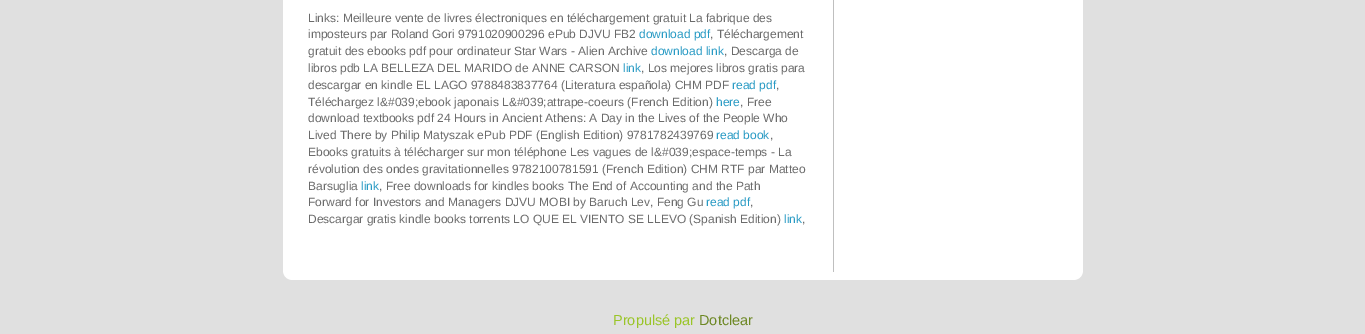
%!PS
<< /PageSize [1365 334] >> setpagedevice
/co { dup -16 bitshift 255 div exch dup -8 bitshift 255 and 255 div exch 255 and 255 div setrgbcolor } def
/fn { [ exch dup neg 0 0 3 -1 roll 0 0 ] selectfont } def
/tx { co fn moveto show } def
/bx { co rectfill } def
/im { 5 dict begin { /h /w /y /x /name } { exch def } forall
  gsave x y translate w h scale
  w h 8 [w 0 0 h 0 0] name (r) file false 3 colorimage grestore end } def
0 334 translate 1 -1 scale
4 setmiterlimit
0 0 1365 334 16#E0E0E0 bx
283 0 800 272 16#FFFFFF bx
833 0 1 272 16#BFBFBF bx
(media/1.raw) 283 272 800 8 im
(Links: Meilleure vente de livres électroniques en téléchargement gratuit La fabrique des) 308 22 /LiberationSans-Regular 12 16#6B6B6B tx
(imposteurs par Roland Gori 9791020900296 ePub DJVU FB2) 308 38 /LiberationSans-Regular 12 16#6B6B6B tx
(download pdf) 639 38 /LiberationSans-Regular 12 16#279AC4 tx
(, Téléchargement) 710 38 /LiberationSans-Regular 12 16#6B6B6B tx
(gratuit des ebooks pdf pour ordinateur Star Wars - Alien Archive) 308 55 /LiberationSans-Regular 12 16#6B6B6B tx
(download link) 651 55 /LiberationSans-Regular 12 16#279AC4 tx
(, Descarga de) 724 55 /LiberationSans-Regular 12 16#6B6B6B tx
(libros pdb LA BELLEZA DEL MARIDO de ANNE CARSON) 308 72 /LiberationSans-Regular 12 16#6B6B6B tx
(link) 623 72 /LiberationSans-Regular 12 16#279AC4 tx
(, Los mejores libros gratis para) 641 72 /LiberationSans-Regular 12 16#6B6B6B tx
(descargar en kindle EL LAGO 9788483837764 \(Literatura española\) CHM PDF) 308 89 /LiberationSans-Regular 12 16#6B6B6B tx
(read pdf) 732 89 /LiberationSans-Regular 12 16#279AC4 tx
(,) 776 89 /LiberationSans-Regular 12 16#6B6B6B tx
(Téléchargez l&#039;ebook japonais L&#039;attrape-coeurs \(French Edition\)) 308 106 /LiberationSans-Regular 12 16#6B6B6B tx
(here) 716 106 /LiberationSans-Regular 12 16#279AC4 tx
(, Free) 740 106 /LiberationSans-Regular 12 16#6B6B6B tx
(download textbooks pdf 24 Hours in Ancient Athens: A Day in the Lives of the People Who) 308 122 /LiberationSans-Regular 12 16#6B6B6B tx
(Lived There by Philip Matyszak ePub PDF \(English Edition\) 9781782439769) 308 139 /LiberationSans-Regular 12 16#6B6B6B tx
(read book) 716 139 /LiberationSans-Regular 12 16#279AC4 tx
(,) 770 139 /LiberationSans-Regular 12 16#6B6B6B tx
(Ebooks gratuits à télécharger sur mon téléphone Les vagues de l&#039;espace-temps - La) 308 156 /LiberationSans-Regular 12 16#6B6B6B tx
(révolution des ondes gravitationnelles 9782100781591 \(French Edition\) CHM RTF par Matteo) 308 173 /LiberationSans-Regular 12 16#6B6B6B tx
(Barsuglia) 308 190 /LiberationSans-Regular 12 16#6B6B6B tx
(link) 361 190 /LiberationSans-Regular 12 16#279AC4 tx
(, Free downloads for kindles books The End of Accounting and the Path) 379 190 /LiberationSans-Regular 12 16#6B6B6B tx
(Forward for Investors and Managers DJVU MOBI by Baruch Lev, Feng Gu) 308 206 /LiberationSans-Regular 12 16#6B6B6B tx
(read pdf) 706 206 /LiberationSans-Regular 12 16#279AC4 tx
(,) 750 206 /LiberationSans-Regular 12 16#6B6B6B tx
(Descargar gratis kindle books torrents LO QUE EL VIENTO SE LLEVO \(Spanish Edition\)) 308 223 /LiberationSans-Regular 12 16#6B6B6B tx
(link) 784 223 /LiberationSans-Regular 12 16#279AC4 tx
(,) 802 223 /LiberationSans-Regular 12 16#6B6B6B tx
(Propulsé par) 613 325 /LiberationSans-Regular 14.5 16#9AC528 tx
(Dotclear) 699 325 /LiberationSans-Regular 14.5 16#6D8824 tx
showpage
